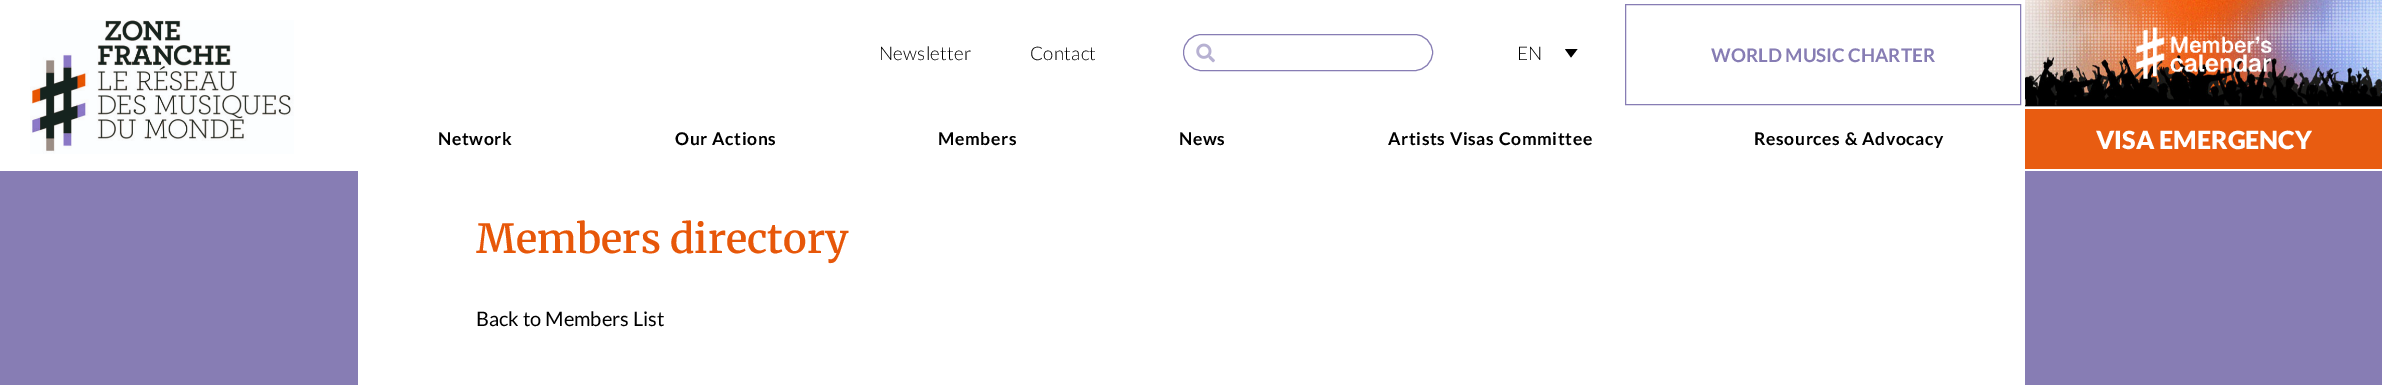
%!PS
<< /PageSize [2382 385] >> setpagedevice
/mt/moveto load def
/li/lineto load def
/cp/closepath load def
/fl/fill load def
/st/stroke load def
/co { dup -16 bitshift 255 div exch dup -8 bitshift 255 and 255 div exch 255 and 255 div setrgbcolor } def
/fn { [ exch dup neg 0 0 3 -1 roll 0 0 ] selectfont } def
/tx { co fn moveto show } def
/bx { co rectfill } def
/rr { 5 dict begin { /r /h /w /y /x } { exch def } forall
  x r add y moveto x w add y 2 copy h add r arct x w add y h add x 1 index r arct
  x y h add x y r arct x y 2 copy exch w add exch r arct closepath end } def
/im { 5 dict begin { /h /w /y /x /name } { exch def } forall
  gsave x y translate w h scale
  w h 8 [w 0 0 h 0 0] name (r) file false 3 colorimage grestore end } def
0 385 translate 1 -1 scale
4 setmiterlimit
0 0 2382 385 16#877DB4 bx
0 0 2382 171 16#FFFFFF bx
(media/1.raw) 30 20 264 134 im
16#877DB4 co
1183.5 34.5 249 36 18 rr st
(media/2.raw) 1196 43 19 20 im
16#000000 co
1565 49 mt 1577.5 49 li 1571 57.5 li cp fl
16#877DB4 co
1625.5 4.5 395 100 rectstroke
(media/3.raw) 2025 0 357 107 im
(media/4.raw) 2136 27 136 52 im
2025 109 357 60 16#E85C11 bx
358 171 1667 214 16#FFFFFF bx
/Lato-Light 18.75 fn
16#000000 co
879 60 mt .25 0 (Newsletter) ashow
1030 60 mt .25 0 (Contact) ashow
1517 60 mt .25 0 (EN) ashow
(WORLD MUSIC CHARTER) 1711 62 /Lato-Bold 18.75 16#877DB4 tx
/Lato-Bold 17.5 fn
16#000000 co
438 145 mt .65 0 (Network) ashow
675 145 mt .65 0 (Our Actions) ashow
938 145 mt .65 0 (Members) ashow
1179 145 mt .65 0 (News) ashow
1388 145 mt .65 0 (Artists Visas Committee) ashow
1754 145 mt .65 0 (Resources & Advocacy) ashow
(VISA EMERGENCY) 2096 149 /Lato-Black 25 16#FFFFFF tx
(Members directory) 476 253 /Merriweather-SemiBold 40 16#E75709 tx
(Back to Members List) 476 326 /Lato-Regular 20 16#000000 tx
showpage
